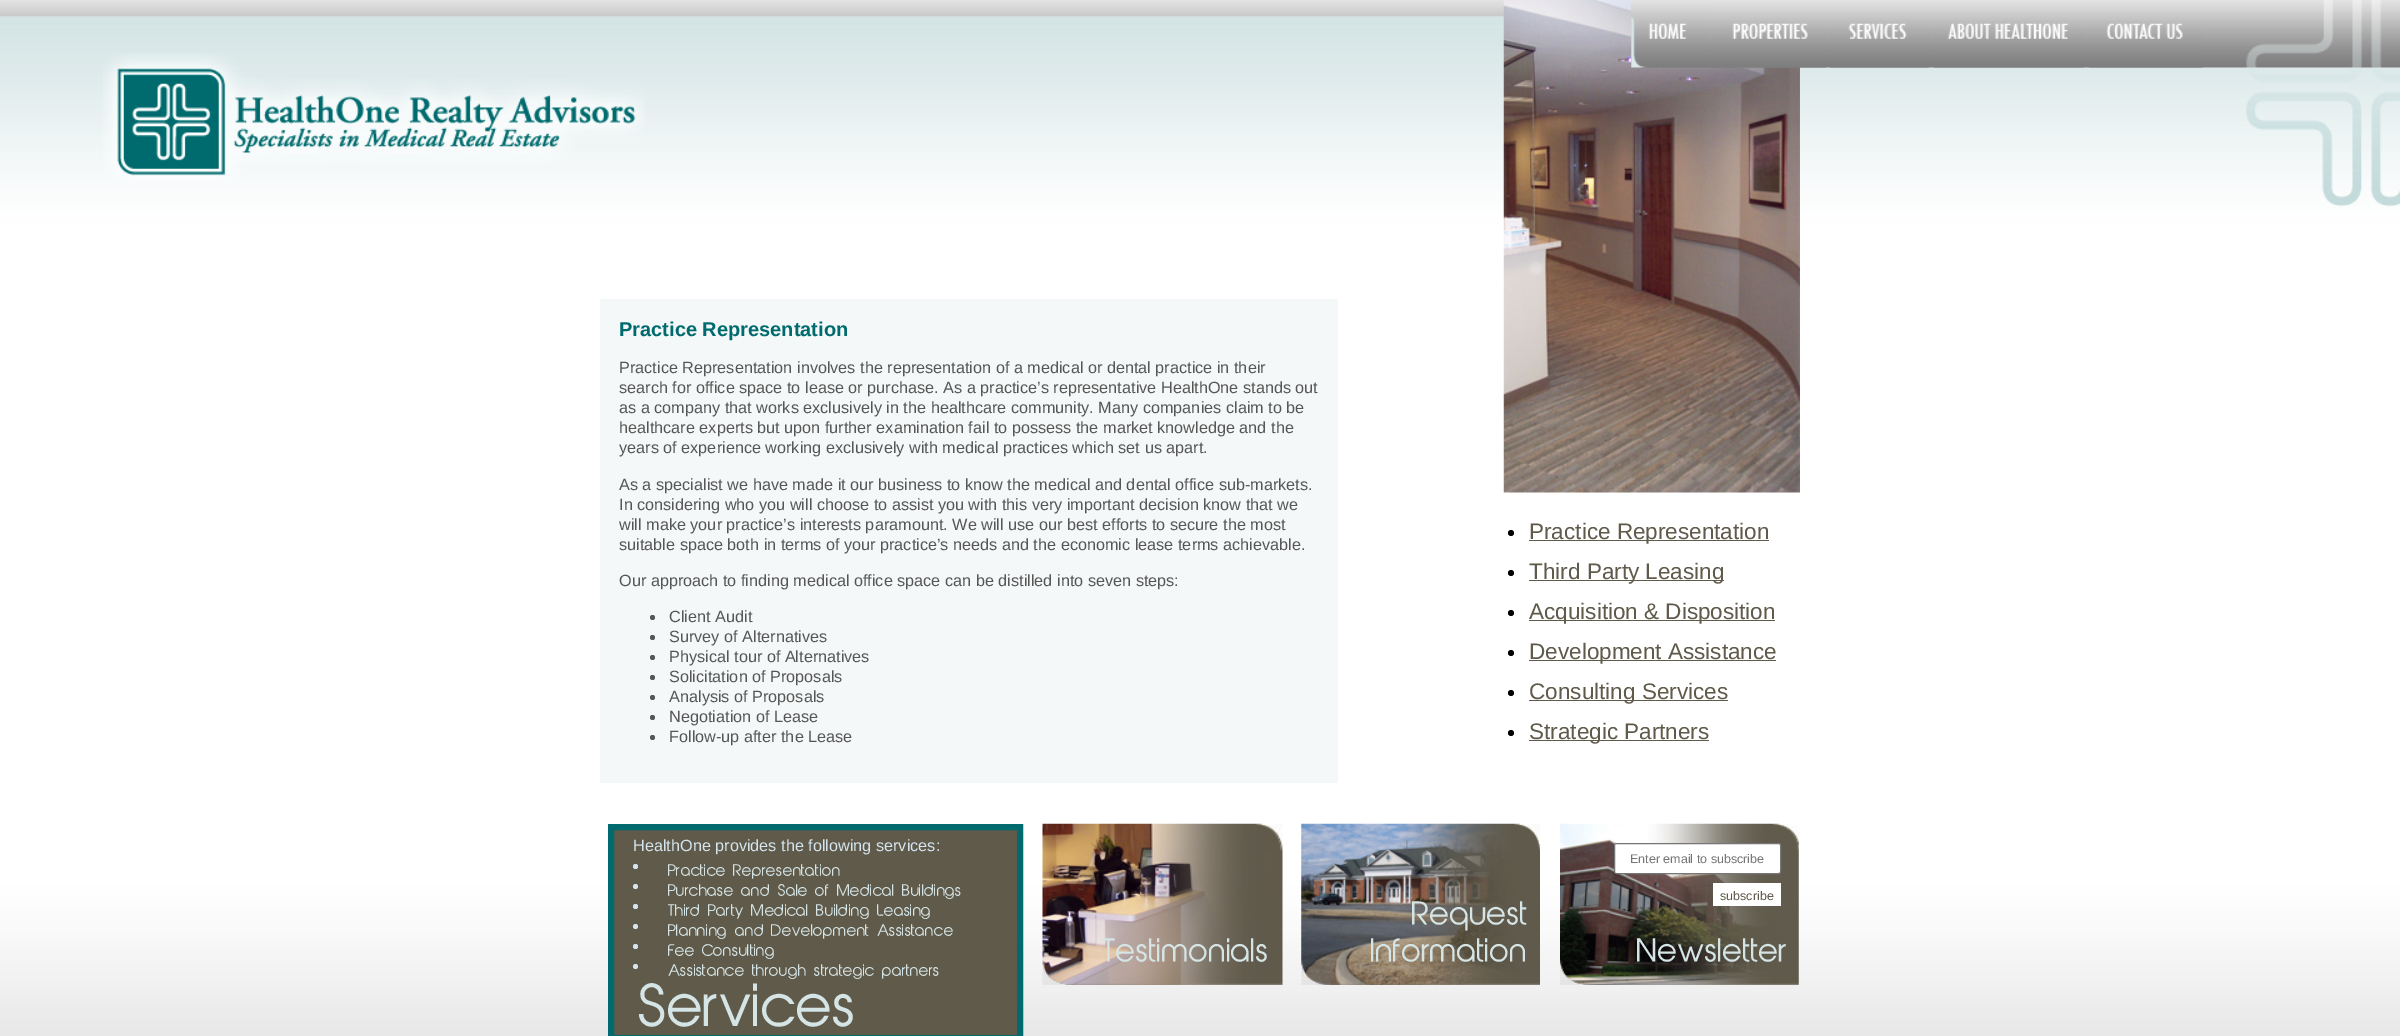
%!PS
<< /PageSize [2400 1036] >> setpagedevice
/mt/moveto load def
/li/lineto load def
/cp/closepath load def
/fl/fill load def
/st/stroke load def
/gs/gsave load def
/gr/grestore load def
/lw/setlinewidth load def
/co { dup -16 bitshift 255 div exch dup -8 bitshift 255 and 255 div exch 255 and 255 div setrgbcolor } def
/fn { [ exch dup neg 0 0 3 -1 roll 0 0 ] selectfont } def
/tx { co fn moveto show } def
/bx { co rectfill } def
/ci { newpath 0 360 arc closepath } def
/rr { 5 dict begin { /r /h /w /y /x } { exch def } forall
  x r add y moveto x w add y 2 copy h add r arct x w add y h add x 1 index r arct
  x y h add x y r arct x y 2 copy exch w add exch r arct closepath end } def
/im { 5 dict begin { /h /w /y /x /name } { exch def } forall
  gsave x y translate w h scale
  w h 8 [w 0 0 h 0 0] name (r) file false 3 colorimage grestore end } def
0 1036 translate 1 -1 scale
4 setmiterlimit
0 0 2400 1036 16#FFFFFF bx
(media/1.raw) 0 0 2400 1036 im
(media/2.raw) 103 53 542 127 im
(media/10.raw) 1503 0 297 493 im
(media/3.raw) 1631 0 769 68 im
(media/4.raw) 1631 3 76 65 im
(media/5.raw) 1713 23 114 45 im
(media/6.raw) 1830 23 99 45 im
(media/7.raw) 1933 23 151 45 im
(media/8.raw) 2088 23 115 45 im
(media/9.raw) 2246 0 154 207 im
600 299 738 484 16#F5F8F8 bx
16#565656 co
652.5 617.5 2.5 ci fl
652.5 637.5 2.5 ci fl
652.5 657.5 2.5 ci fl
652.5 677.5 2.5 ci fl
652.5 697.5 2.5 ci fl
652.5 717.5 2.5 ci fl
652.5 737.5 2.5 ci fl
16#000000 co
1511 533 3 ci fl
1529 540 240 1 16#605A4B bx
16#000000 co
1511 573 3 ci fl
1529 580 195 1 16#605A4B bx
16#000000 co
1511 613 3 ci fl
1529 620 246 1 16#605A4B bx
16#000000 co
1511 653 3 ci fl
1529 660 247 1 16#605A4B bx
16#000000 co
1511 693 3 ci fl
1529 700 199 1 16#605A4B bx
16#000000 co
1511 733 3 ci fl
1529 740 180 1 16#605A4B bx
611 827 mt 1020 827 li 1020 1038 li 611 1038 li cp gs fl gr
16#006B6E co
6 lw
st
16#D4E5EF co
635.5 866.5 2.5 ci fl
635.5 886.5 2.5 ci fl
635.5 906.5 2.5 ci fl
635.5 926.5 2.5 ci fl
635.5 946.5 2.5 ci fl
635.5 966.5 2.5 ci fl
(media/11.raw) 1042 823 241 162 im
(media/12.raw) 1301 823 239 162 im
(media/13.raw) 1560 823 239 162 im
16#FFFFFF co
1614.5 843.5 166 30 2 rr gs fl gr
16#767676 co
1 lw
st
1713 883 68 23 16#FFFFFF bx
(Practice Representation) 619 336 /LiberationSans-Bold 20 16#006B6E tx
(Practice Representation involves the representation of a medical or dental practice in their) 619 373 /LiberationSans-Regular 16.25 16#565656 tx
(search for office space to lease or purchase. As a practice’s representative HealthOne stands out) 619 393 /LiberationSans-Regular 16.25 16#565656 tx
(as a company that works exclusively in the healthcare community. Many companies claim to be) 619 413 /LiberationSans-Regular 16.25 16#565656 tx
(healthcare experts but upon further examination fail to possess the market knowledge and the) 619 433 /LiberationSans-Regular 16.25 16#565656 tx
(years of experience working exclusively with medical practices which set us apart.) 619 453 /LiberationSans-Regular 16.25 16#565656 tx
(As a specialist we have made it our business to know the medical and dental office sub-markets.) 619 490 /LiberationSans-Regular 16.25 16#565656 tx
(In considering who you will choose to assist you with this very important decision know that we) 619 510 /LiberationSans-Regular 16.25 16#565656 tx
(will make your practice’s interests paramount. We will use our best efforts to secure the most) 619 530 /LiberationSans-Regular 16.25 16#565656 tx
(suitable space both in terms of your practice’s needs and the economic lease terms achievable.) 619 550 /LiberationSans-Regular 16.25 16#565656 tx
(Our approach to finding medical office space can be distilled into seven steps:) 619 586 /LiberationSans-Regular 16.25 16#565656 tx
(Client Audit) 669 622 /LiberationSans-Regular 16.25 16#565656 tx
(Survey of Alternatives) 669 642 /LiberationSans-Regular 16.25 16#565656 tx
(Physical tour of Alternatives) 669 662 /LiberationSans-Regular 16.25 16#565656 tx
(Solicitation of Proposals) 669 682 /LiberationSans-Regular 16.25 16#565656 tx
(Analysis of Proposals) 669 702 /LiberationSans-Regular 16.25 16#565656 tx
(Negotiation of Lease) 669 722 /LiberationSans-Regular 16.25 16#565656 tx
(Follow-up after the Lease) 669 742 /LiberationSans-Regular 16.25 16#565656 tx
(Practice Representation) 1529 539 /LiberationSans-Regular 22.5 16#605A4B tx
(Third Party Leasing) 1529 579 /LiberationSans-Regular 22.5 16#605A4B tx
(Acquisition & Disposition) 1529 619 /LiberationSans-Regular 22.5 16#605A4B tx
(Development Assistance) 1529 659 /LiberationSans-Regular 22.5 16#605A4B tx
(Consulting Services) 1529 699 /LiberationSans-Regular 22.5 16#605A4B tx
(Strategic Partners) 1529 739 /LiberationSans-Regular 22.5 16#605A4B tx
(HealthOne provides the following services:) 633 851 /LiberationSans-Regular 16.25 16#D4E5EF tx
(Practice Representation) 668 876 /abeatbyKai-Regular 15 16#D5E5E6 tx
(Purchase and Sale of Medical Buildings) 668 896 /abeatbyKai-Regular 15 16#D5E5E6 tx
(Third Party Medical Building Leasing) 668 916 /abeatbyKai-Regular 15 16#D5E5E6 tx
(Planning and Development Assistance) 668 936 /abeatbyKai-Regular 15 16#D5E5E6 tx
(Fee Consulting) 668 956 /abeatbyKai-Regular 15 16#D5E5E6 tx
(Assistance through strategic partners) 668 976 /abeatbyKai-Regular 15 16#D5E5E6 tx
(Services) 639 1027 /abeatbyKai-Regular 55 16#D5E5E6 tx
(Testimonials) 1102 962 /abeatbyKai-Regular 30 16#D5E5E6 tx
(Request) 1412 925 /abeatbyKai-Regular 30 16#D5E5E6 tx
(Information) 1371 962 /abeatbyKai-Regular 30 16#D5E5E6 tx
(Enter email to subscribe) 1630 863 /LiberationSans-Regular 12.5 16#757575 tx
(subscribe) 1720 900 /LiberationSans-Regular 12.5 16#605A4B tx
(Newsletter) 1637 962 /abeatbyKai-Regular 30 16#D5E5E6 tx
showpage
